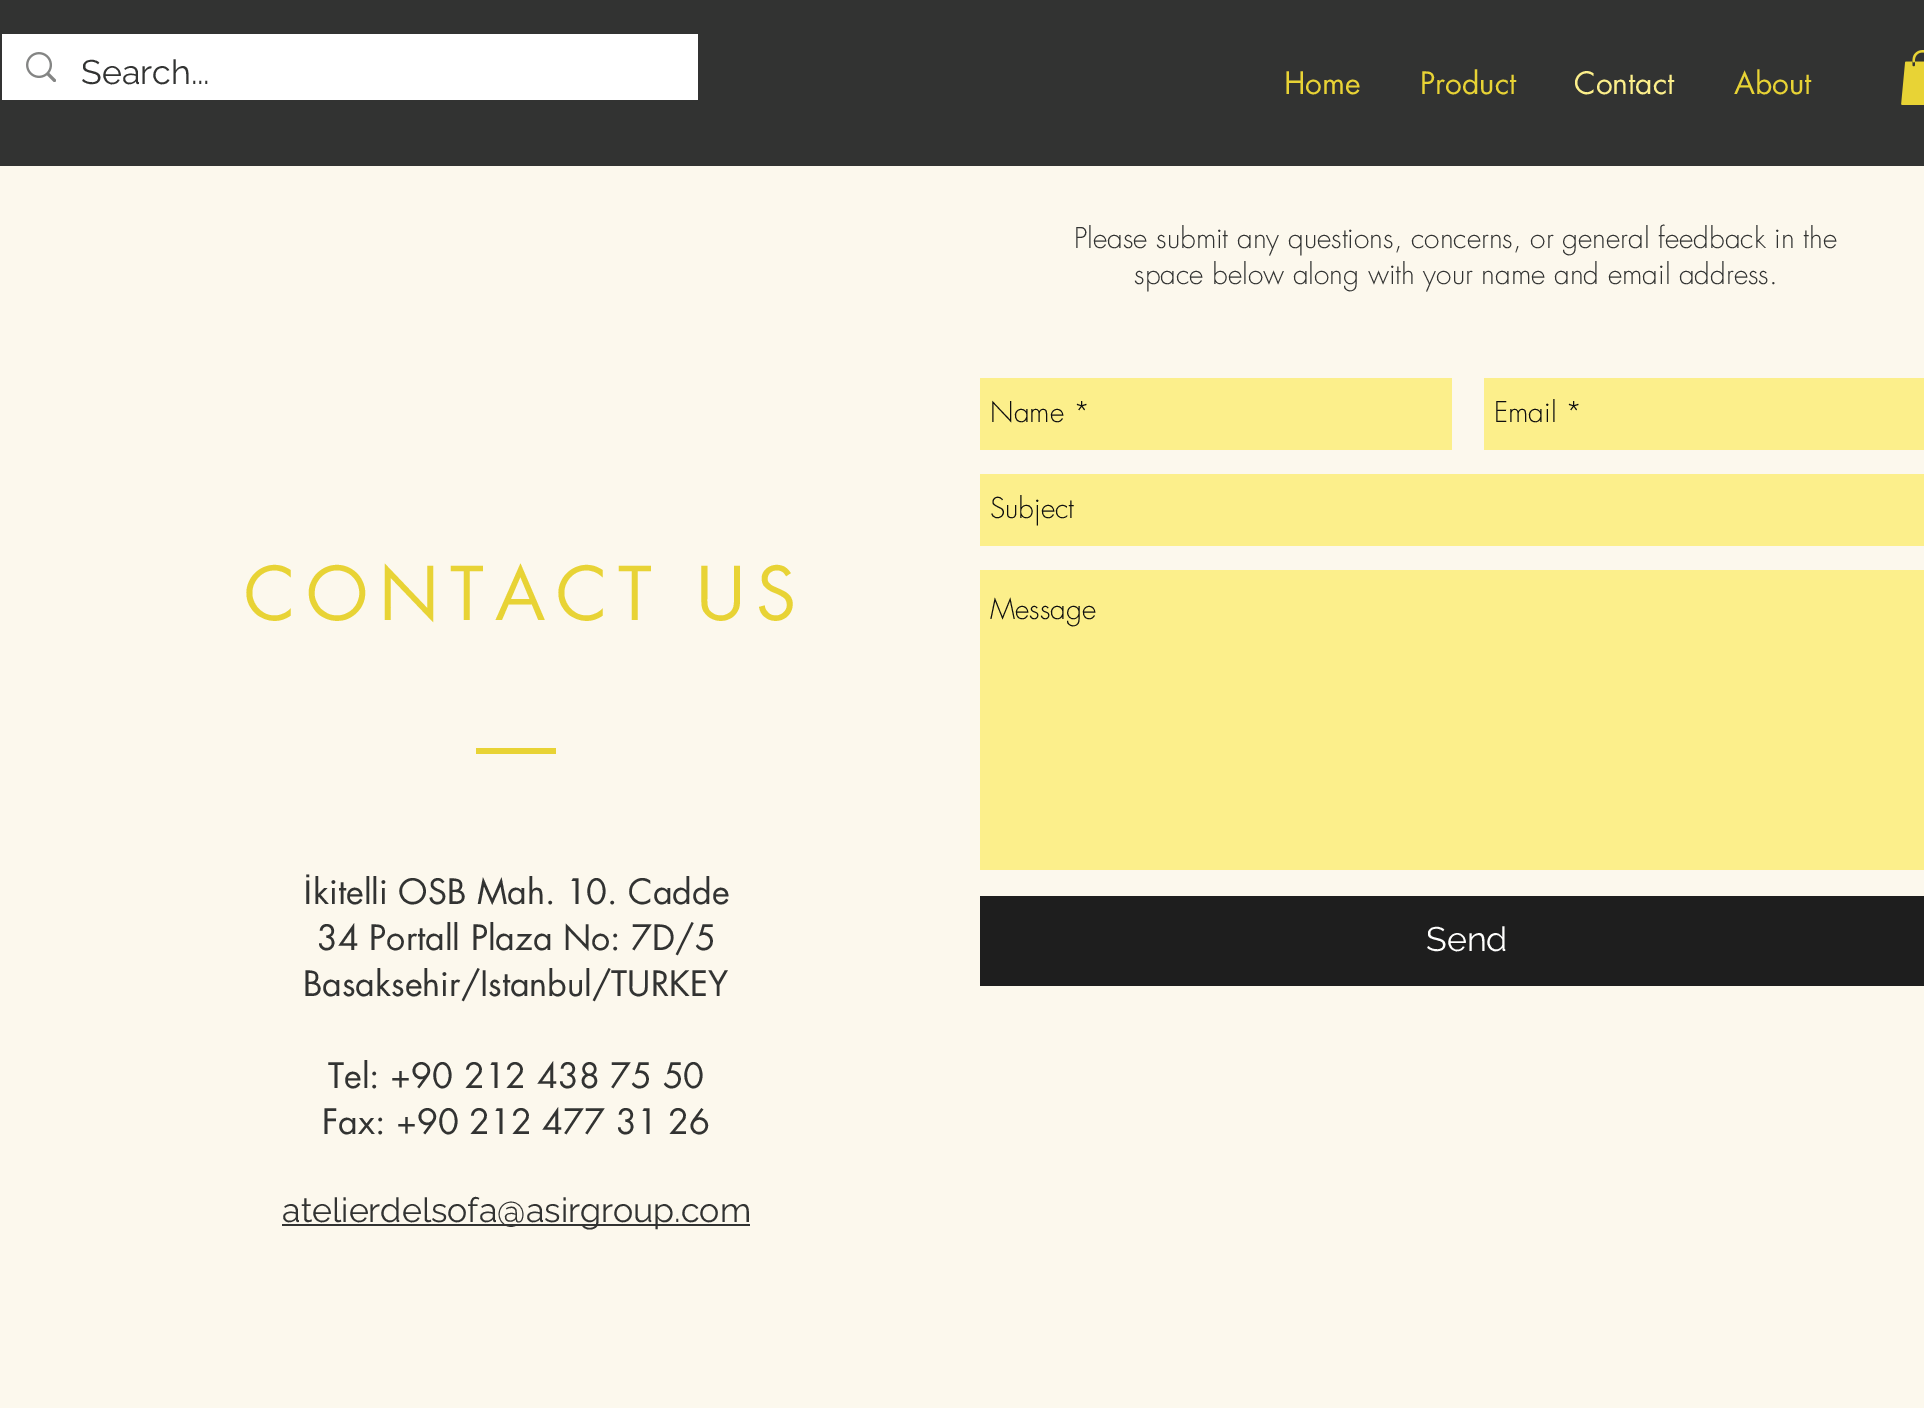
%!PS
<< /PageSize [1924 1408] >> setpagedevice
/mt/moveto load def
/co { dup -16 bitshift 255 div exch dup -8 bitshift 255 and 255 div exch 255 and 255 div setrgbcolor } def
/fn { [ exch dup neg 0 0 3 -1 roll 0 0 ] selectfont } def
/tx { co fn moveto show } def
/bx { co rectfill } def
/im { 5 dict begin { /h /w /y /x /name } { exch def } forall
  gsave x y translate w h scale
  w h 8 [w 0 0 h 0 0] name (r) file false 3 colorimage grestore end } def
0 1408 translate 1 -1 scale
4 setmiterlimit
0 0 1924 1408 16#FCF8ED bx
0 0 1924 166 16#323332 bx
2 34 696 66 16#FFFFFF bx
(media/1.raw) 26 52 30 30 im
(media/2.raw) 1901 50 23 55 im
476 748 80 6 16#E8D335 bx
282 1224 468 2 16#323332 bx
980 378 472 72 16#FCEF8B bx
1484 378 440 72 16#FCEF8B bx
980 474 944 72 16#FCEF8B bx
980 570 944 300 16#FCEF8B bx
980 896 944 90 16#1E1E1E bx
(Search...) 81 84 /Raleway-Regular 34 16#323332 tx
(Home) 1284 94 /futura-Regular 30 16#E8D335 tx
(Product) 1420 94 /futura-Regular 30 16#E8D335 tx
(Contact) 1574 94 /futura-Regular 30 16#FCEF8B tx
(About) 1734 94 /futura-Regular 30 16#E8D335 tx
/futura-Regular 72 fn
244 620 mt 10.75 0 (CONTACT US) ashow
(İ) 303 904 /LiberationSans-Regular 34 16#323332 tx
(kitelli OSB Mah. 10. Cadde) 313 904 /futura-Regular 34 16#323332 tx
(34 Portall Plaza No: 7D/5) 317 950 /futura-Regular 34 16#323332 tx
(Basaksehir/Istanbul/TURKEY) 303 996 /futura-Regular 34 16#323332 tx
(Tel: +90 212 438 75 50) 328 1088 /futura-Regular 34 16#323332 tx
(Fax: +90 212 477 31 26) 322 1134 /futura-Regular 34 16#323332 tx
(atelierdelsofa@asirgroup.com) 282 1222 /Raleway-Regular 34 16#323332 tx
(Please submit any questions, concerns, or general feedback in the) 1074 248 /futura-Light 28 16#323332 tx
(space below along with your name and email address.) 1134 284 /futura-Light 28 16#323332 tx
(Name *) 990 422 /futura-Light 28 16#0F0F0F tx
(Email *) 1494 422 /futura-Light 28 16#0F0F0F tx
(Subject) 990 518 /futura-Light 28 16#0F0F0F tx
(Message) 990 619 /futura-Light 28 16#0F0F0F tx
(Send) 1426 951 /Raleway-Regular 34 16#FFFFFE tx
showpage
